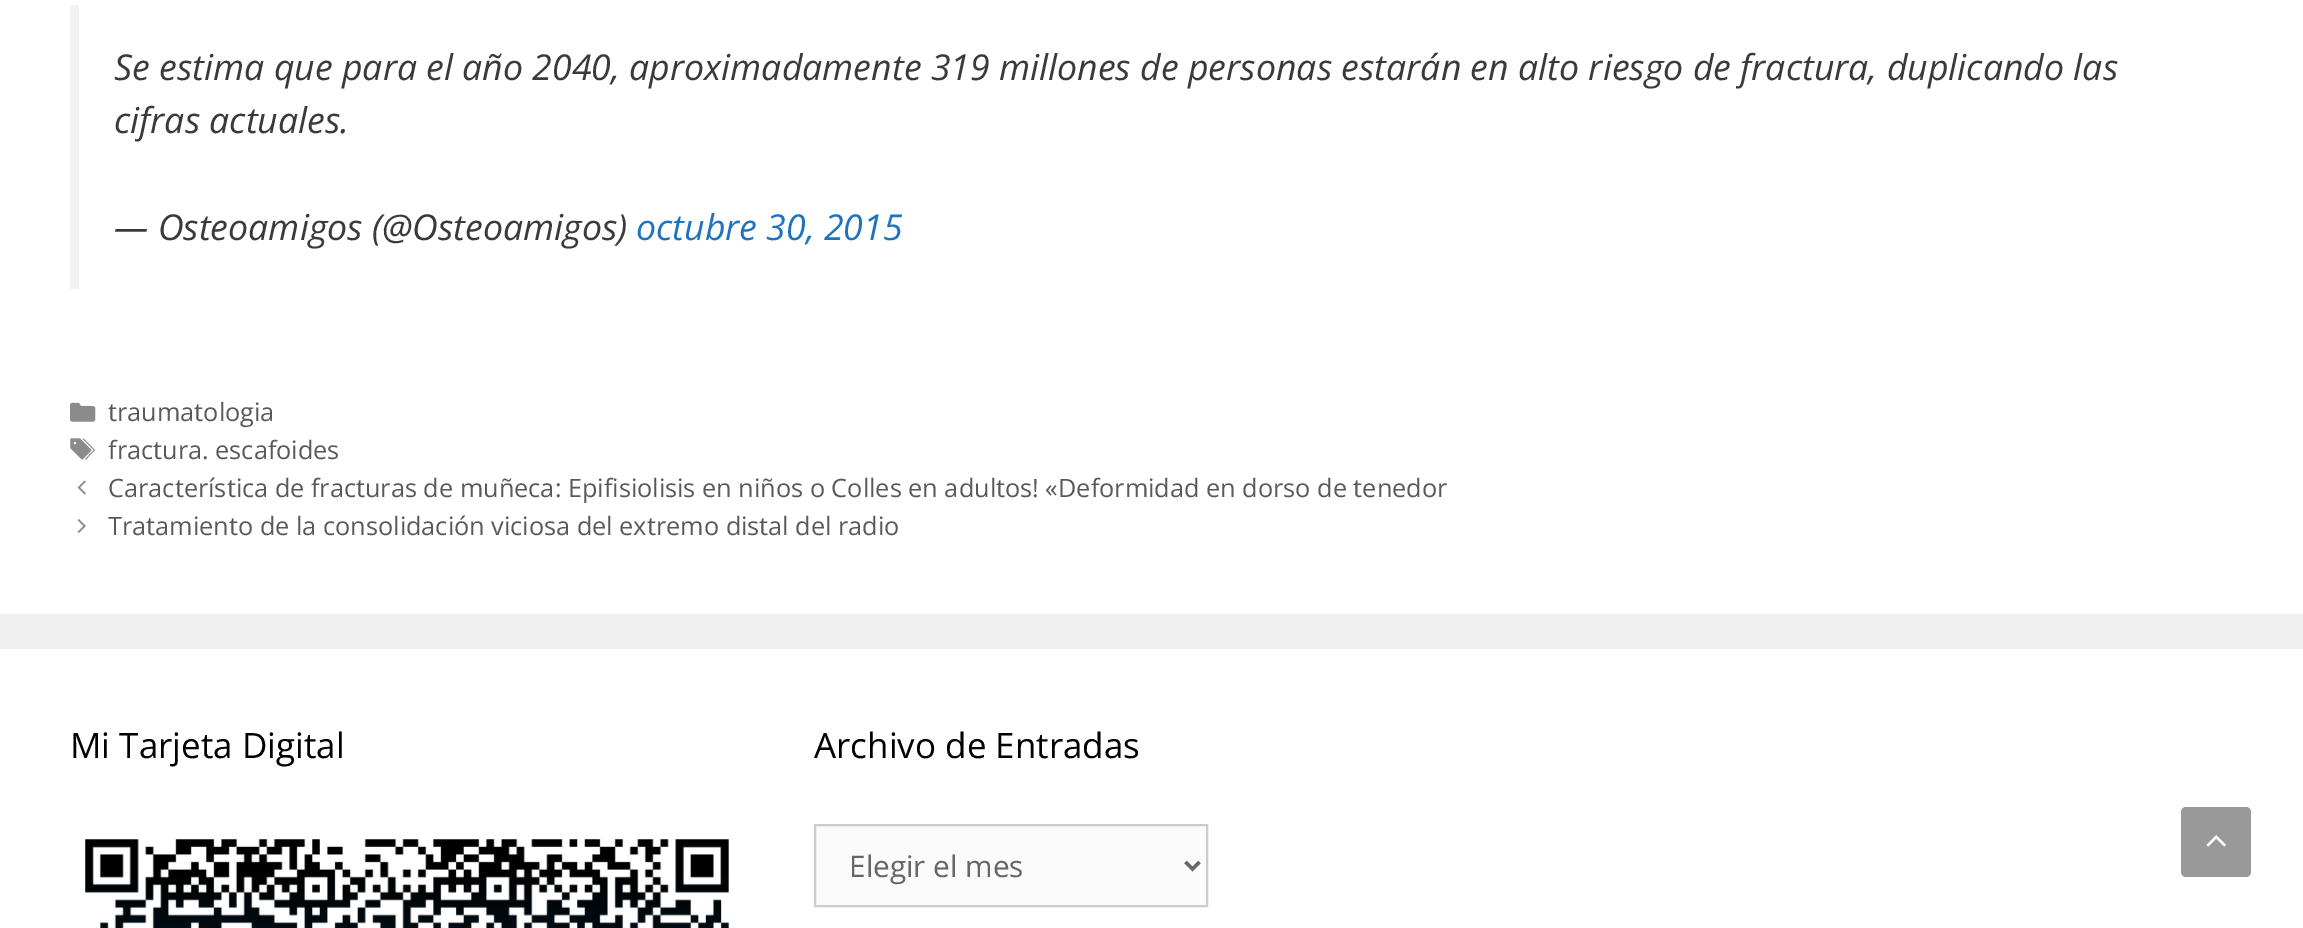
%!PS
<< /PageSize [2303 928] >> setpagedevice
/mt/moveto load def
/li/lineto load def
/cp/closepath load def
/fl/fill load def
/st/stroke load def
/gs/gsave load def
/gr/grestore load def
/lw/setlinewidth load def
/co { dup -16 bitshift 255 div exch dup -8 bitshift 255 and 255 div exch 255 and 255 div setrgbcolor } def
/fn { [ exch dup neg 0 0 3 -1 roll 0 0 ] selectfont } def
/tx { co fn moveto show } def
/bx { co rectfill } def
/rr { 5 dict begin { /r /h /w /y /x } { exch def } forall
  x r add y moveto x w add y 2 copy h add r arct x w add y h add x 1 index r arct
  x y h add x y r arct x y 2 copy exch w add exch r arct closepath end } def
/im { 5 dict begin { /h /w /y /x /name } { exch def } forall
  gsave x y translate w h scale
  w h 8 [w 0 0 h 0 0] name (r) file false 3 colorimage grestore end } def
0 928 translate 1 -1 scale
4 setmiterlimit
0 0 2303 928 16#EFEFEF bx
0 0 2303 614 16#FFFFFF bx
70 5 9 284 16#F2F2F2 bx
(media/1.raw) 70 402 26 20 im
(media/2.raw) 70 438 25 22 im
(media/3.raw) 77 480 9 15 im
(media/4.raw) 77 519 9 14 im
0 649 2303 279 16#FFFFFF bx
(media/5.raw) 85 839 644 89 im
16#FAFAFA co
815 825 mt 1207 825 li 1207 906 li 815 906 li cp gs fl gr
16#CCCCCC co
2 lw
st
16#666666 co
3.5 lw
1185.5 862 mt 1192.5 869 li 1199.5 862 li st
16#999999 co
2181 807 70 70 5 rr fl
(media/6.raw) 2206 835 20 12 im
(Se estima que para el año 2040, aproximadamente 319 millones de personas estarán en alto riesgo de fractura, duplicando las) 114 80 /OpenSans-Italic 35.7 16#3A3A3A tx
(cifras actuales.) 114 133 /OpenSans-Italic 35.7 16#3A3A3A tx
(— Osteoamigos \(@Osteoamigos\)) 114 240 /OpenSans-Italic 35.7 16#3A3A3A tx
(octubre 30, 2015) 636 240 /OpenSans-Italic 35.7 16#1E73BE tx
(traumatologia) 108 421 /OpenSans-Regular 25.3 16#595959 tx
(fractura. escafoides) 108 459 /OpenSans-Regular 25.3 16#595959 tx
(Característica de fracturas de muñeca: Epifisiolisis en niños o Colles en adultos! «Deformidad en dorso de tenedor) 108 497 /OpenSans-Regular 25.3 16#595959 tx
(Tratamiento de la consolidación viciosa del extremo distal del radio) 108 535 /OpenSans-Regular 25.3 16#595959 tx
(Mi Tarjeta Digital) 70 758 /OpenSans-Regular 35 16#000000 tx
(Archivo de Entradas) 814 758 /OpenSans-Regular 35 16#000000 tx
(Elegir el mes) 849 877 /OpenSans-Regular 29.75 16#666666 tx
showpage
